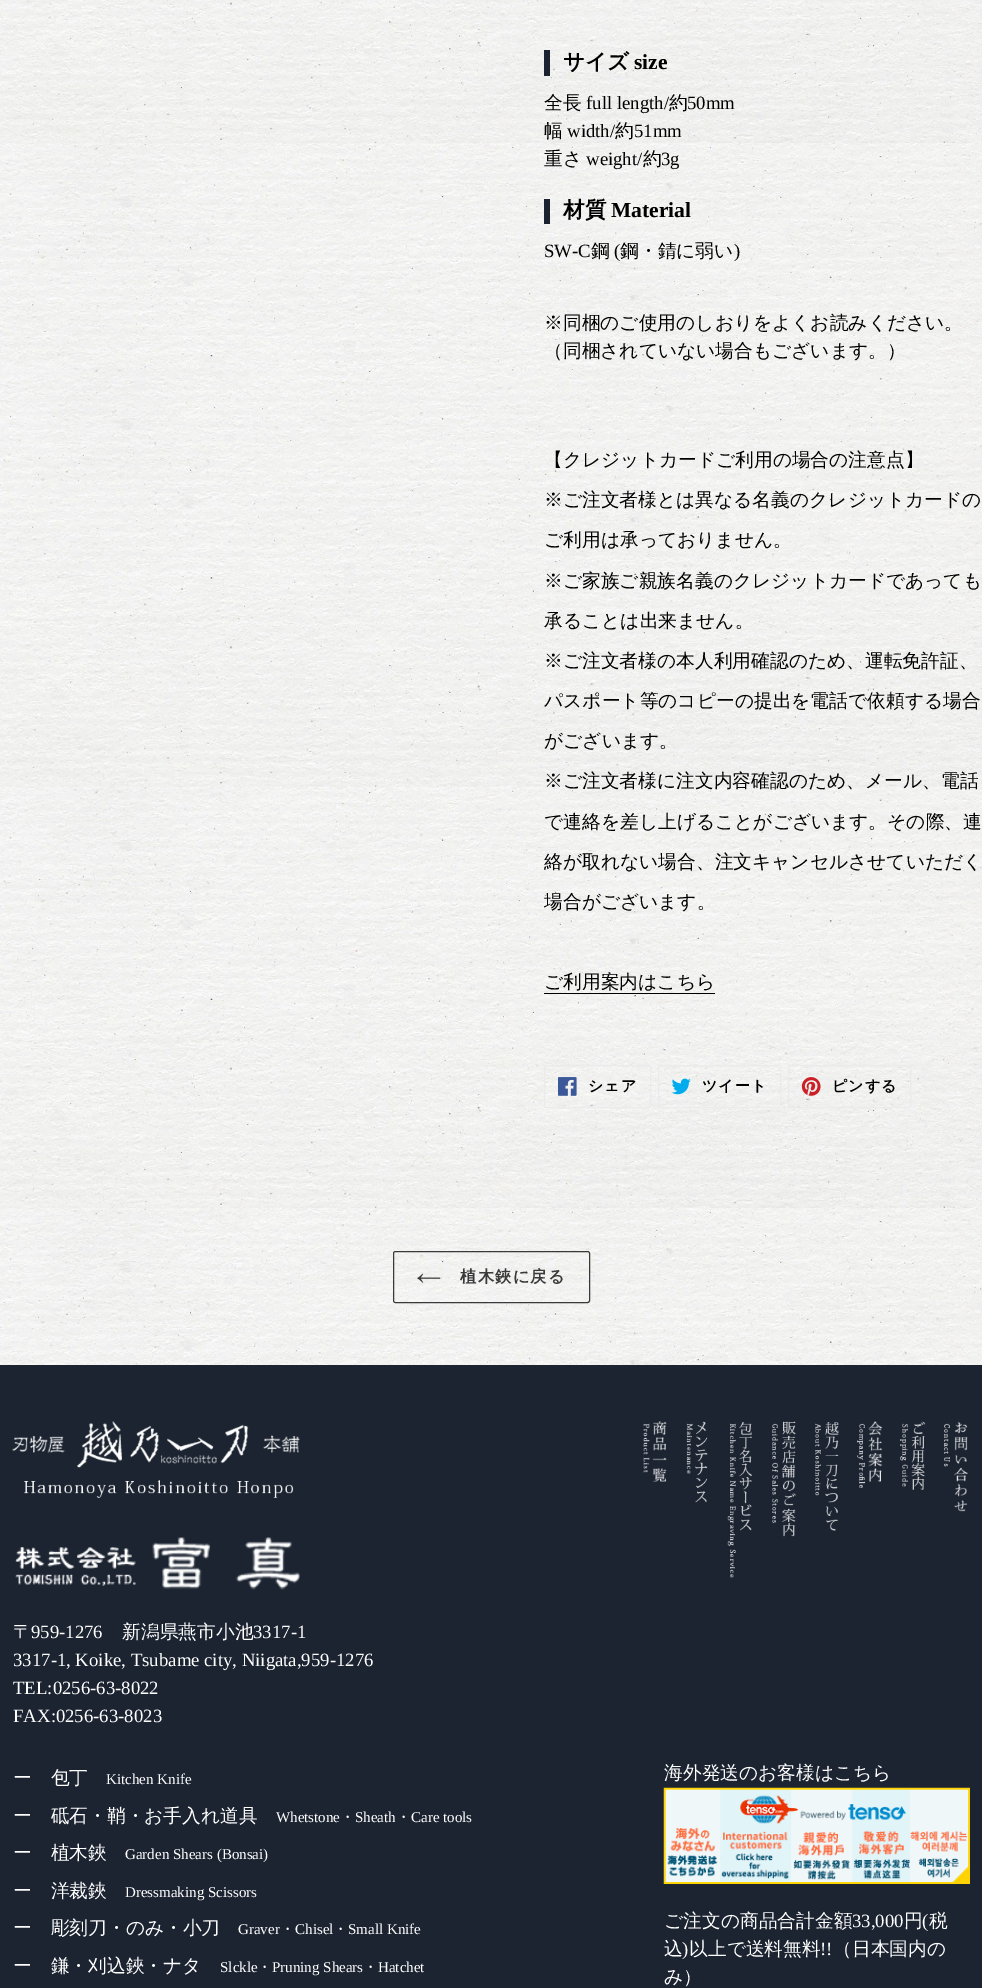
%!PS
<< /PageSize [982 1988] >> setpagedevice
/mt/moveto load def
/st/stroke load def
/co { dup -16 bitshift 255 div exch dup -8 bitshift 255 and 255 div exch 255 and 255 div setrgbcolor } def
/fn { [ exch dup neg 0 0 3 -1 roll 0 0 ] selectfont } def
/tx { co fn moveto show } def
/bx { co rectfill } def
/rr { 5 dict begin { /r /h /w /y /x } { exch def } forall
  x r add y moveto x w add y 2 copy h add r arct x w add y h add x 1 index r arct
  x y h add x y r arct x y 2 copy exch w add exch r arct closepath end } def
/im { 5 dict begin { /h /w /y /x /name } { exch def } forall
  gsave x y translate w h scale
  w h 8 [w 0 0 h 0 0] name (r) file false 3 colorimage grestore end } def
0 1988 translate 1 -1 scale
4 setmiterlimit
0 0 982 1988 16#FFFFFF bx
(media/1.raw) 0 0 982 1365 im
544 50 6 26 16#1B2330 bx
544 199 6 25 16#1B2330 bx
544 993 171 1 16#000000 bx
16#EBEBEB co
544.5 1065.5 106 42 2 rr st
(media/2.raw) 558 1077 19 19 im
658.5 1065.5 122 42 2 rr st
(media/3.raw) 671 1078 20 17 im
788.5 1065.5 122 42 2 rr st
(media/4.raw) 801 1077 20 19 im
16#3A3A3A co
393.5 1251.5 196 51 2 rr st
(media/5.raw) 417 1273 24 10 im
0 1365 982 623 16#1C2431 bx
(media/6.raw) 643 1421 24 61 im
(media/7.raw) 686 1421 22 82 im
(media/8.raw) 727 1421 25 157 im
(media/9.raw) 772 1421 24 116 im
(media/10.raw) 815 1422 24 109 im
(media/11.raw) 857 1421 26 67 im
(media/12.raw) 900 1421 26 69 im
(media/13.raw) 944 1421 24 91 im
(media/14.raw) 12 1421 288 77 im
(media/15.raw) 15 1537 285 53 im
(media/16.raw) 663 1787 307 97 im
(サイズ) 563 69 /WenQuanYiZenHei-Bold 21.5 16#000000 tx
(size) 634 69 /LiberationSerif-Bold 21.5 16#000000 tx
(全長) 544 109 /WenQuanYiZenHei-Medium 18.75 16#000000 tx
(full length/) 586 109 /LiberationSerif-Regular 18.75 16#000000 tx
(約) 669 109 /WenQuanYiZenHei-Medium 18.75 16#000000 tx
(50mm) 687 109 /LiberationSerif-Regular 18.75 16#000000 tx
(幅) 544 137 /WenQuanYiZenHei-Medium 18.75 16#000000 tx
(width/) 567 137 /LiberationSerif-Regular 18.75 16#000000 tx
(約) 615 137 /WenQuanYiZenHei-Medium 18.75 16#000000 tx
(51mm) 634 137 /LiberationSerif-Regular 18.75 16#000000 tx
(重さ) 544 165 /WenQuanYiZenHei-Medium 18.75 16#000000 tx
(weight/) 586 165 /LiberationSerif-Regular 18.75 16#000000 tx
(約) 643 165 /WenQuanYiZenHei-Medium 18.75 16#000000 tx
(3g) 661 165 /LiberationSerif-Regular 18.75 16#000000 tx
(材質) 563 217 /WenQuanYiZenHei-Bold 21.5 16#000000 tx
(Material) 611 217 /LiberationSerif-Bold 21.5 16#000000 tx
(SW-C) 544 257 /LiberationSerif-Regular 18.75 16#000000 tx
(鋼) 591 257 /WenQuanYiZenHei-Medium 18.75 16#000000 tx
(\() 614 257 /LiberationSerif-Regular 18.75 16#000000 tx
(鋼・錆に弱い) 620 257 /WenQuanYiZenHei-Medium 18.75 16#000000 tx
(\)) 734 257 /LiberationSerif-Regular 18.75 16#000000 tx
(※同梱のご使用のしおりをよくお読みください。) 544 329 /WenQuanYiZenHei-Medium 18.75 16#000000 tx
(（同梱されていない場合もございます。）) 544 357 /WenQuanYiZenHei-Medium 18.75 16#000000 tx
(【クレジットカードご利用の場合の注意点】) 544 466 /WenQuanYiZenHei-Medium 18.75 16#000000 tx
(※ご注文者様とは異なる名義のクレジットカードの) 544 506 /WenQuanYiZenHei-Medium 18.75 16#000000 tx
(ご利用は承っておりません。) 544 546 /WenQuanYiZenHei-Medium 18.75 16#000000 tx
(※ご家族ご親族名義のクレジットカードであっても) 544 587 /WenQuanYiZenHei-Medium 18.75 16#000000 tx
(承ることは出来ません。) 544 627 /WenQuanYiZenHei-Medium 18.75 16#000000 tx
(※ご注文者様の本人利用確認のため、運転免許証、) 544 667 /WenQuanYiZenHei-Medium 18.75 16#000000 tx
(パスポート等のコピーの提出を電話で依頼する場合) 544 707 /WenQuanYiZenHei-Medium 18.75 16#000000 tx
(がございます。) 544 747 /WenQuanYiZenHei-Medium 18.75 16#000000 tx
(※ご注文者様に注文内容確認のため、メール、電話) 544 787 /WenQuanYiZenHei-Medium 18.75 16#000000 tx
(で連絡を差し上げることがございます。その際、連) 544 828 /WenQuanYiZenHei-Medium 18.75 16#000000 tx
(絡が取れない場合、注文キャンセルさせていただく) 544 868 /WenQuanYiZenHei-Medium 18.75 16#000000 tx
(場合がございます。) 544 908 /WenQuanYiZenHei-Medium 18.75 16#000000 tx
(ご利用案内はこちら) 544 988 /WenQuanYiZenHei-Medium 18.75 16#000000 tx
/WenQuanYiZenHei-Bold 15 fn
588 1091 mt 1 0 (シェア) ashow
702 1091 mt 1 0 (ツイート) ashow
832 1091 mt 1 0 (ピンする) ashow
/WenQuanYiZenHei-Bold 16.25 fn
16#3A3A3A co
460 1282 mt 1.25 0 (植木鋏に戻る) ashow
(〒) 13 1638 /WenQuanYiZenHei-Medium 18.75 16#FFFFFF tx
(959-1276) 31 1638 /LiberationSerif-Regular 18.75 16#FFFFFF tx
(新潟県燕市小池) 122 1638 /WenQuanYiZenHei-Medium 18.75 16#FFFFFF tx
(3317-1) 253 1638 /LiberationSerif-Regular 18.75 16#FFFFFF tx
(3317-1, Koike, Tsubame city, Niigata,959-1276) 13 1666 /LiberationSerif-Regular 18.75 16#FFFFFF tx
(TEL:0256-63-8022) 13 1694 /LiberationSerif-Regular 18.75 16#FFFFFF tx
(FAX:0256-63-8023) 13 1722 /LiberationSerif-Regular 18.75 16#FFFFFF tx
(ー　包丁) 13 1784 /WenQuanYiZenHei-Medium 18.75 16#FFFFFF tx
(Kitchen Knife) 106 1784 /LiberationSerif-Regular 15 16#FFFFFF tx
(ー　砥石・鞘・お手入れ道具) 13 1822 /WenQuanYiZenHei-Medium 18.75 16#FFFFFF tx
(Whetstone) 276 1822 /LiberationSerif-Regular 15 16#FFFFFF tx
(・) 340 1822 /WenQuanYiZenHei-Medium 15 16#FFFFFF tx
(Sheath) 355 1822 /LiberationSerif-Regular 15 16#FFFFFF tx
(・) 396 1822 /WenQuanYiZenHei-Medium 15 16#FFFFFF tx
(Care tools) 411 1822 /LiberationSerif-Regular 15 16#FFFFFF tx
(ー　植木鋏) 13 1859 /WenQuanYiZenHei-Medium 18.75 16#FFFFFF tx
(Garden Shears \(Bonsai\)) 125 1859 /LiberationSerif-Regular 15 16#FFFFFF tx
(ー　洋裁鋏) 13 1897 /WenQuanYiZenHei-Medium 18.75 16#FFFFFF tx
(Dressmaking Scissors) 125 1897 /LiberationSerif-Regular 15 16#FFFFFF tx
(ー　彫刻刀・のみ・小刀) 13 1934 /WenQuanYiZenHei-Medium 18.75 16#FFFFFF tx
(Graver) 238 1934 /LiberationSerif-Regular 15 16#FFFFFF tx
(・) 280 1934 /WenQuanYiZenHei-Medium 15 16#FFFFFF tx
(Chisel) 295 1934 /LiberationSerif-Regular 15 16#FFFFFF tx
(・) 333 1934 /WenQuanYiZenHei-Medium 15 16#FFFFFF tx
(Small Knife) 348 1934 /LiberationSerif-Regular 15 16#FFFFFF tx
(ー　鎌・刈込鋏・ナタ) 13 1972 /WenQuanYiZenHei-Medium 18.75 16#FFFFFF tx
(Slckle) 220 1972 /LiberationSerif-Regular 15 16#FFFFFF tx
(・) 257 1972 /WenQuanYiZenHei-Medium 15 16#FFFFFF tx
(Pruning Shears) 272 1972 /LiberationSerif-Regular 15 16#FFFFFF tx
(・) 363 1972 /WenQuanYiZenHei-Medium 15 16#FFFFFF tx
(Hatchet) 378 1972 /LiberationSerif-Regular 15 16#FFFFFF tx
(海外発送のお客様はこちら) 664 1779 /WenQuanYiZenHei-Medium 18.75 16#FFFFFF tx
(ご注文の商品合計金額) 664 1927 /WenQuanYiZenHei-Medium 18.75 16#FFFFFF tx
(33,000) 852 1927 /LiberationSerif-Regular 18.75 16#FFFFFF tx
(円) 904 1927 /WenQuanYiZenHei-Medium 18.75 16#FFFFFF tx
(\() 922 1927 /LiberationSerif-Regular 18.75 16#FFFFFF tx
(税) 929 1927 /WenQuanYiZenHei-Medium 18.75 16#FFFFFF tx
(込) 664 1955 /WenQuanYiZenHei-Medium 18.75 16#FFFFFF tx
(\)) 682 1955 /LiberationSerif-Regular 18.75 16#FFFFFF tx
(以上で送料無料) 689 1955 /WenQuanYiZenHei-Medium 18.75 16#FFFFFF tx
(!!) 820 1955 /LiberationSerif-Regular 18.75 16#FFFFFF tx
(（日本国内の) 833 1955 /WenQuanYiZenHei-Medium 18.75 16#FFFFFF tx
(み）) 664 1983 /WenQuanYiZenHei-Medium 18.75 16#FFFFFF tx
showpage
